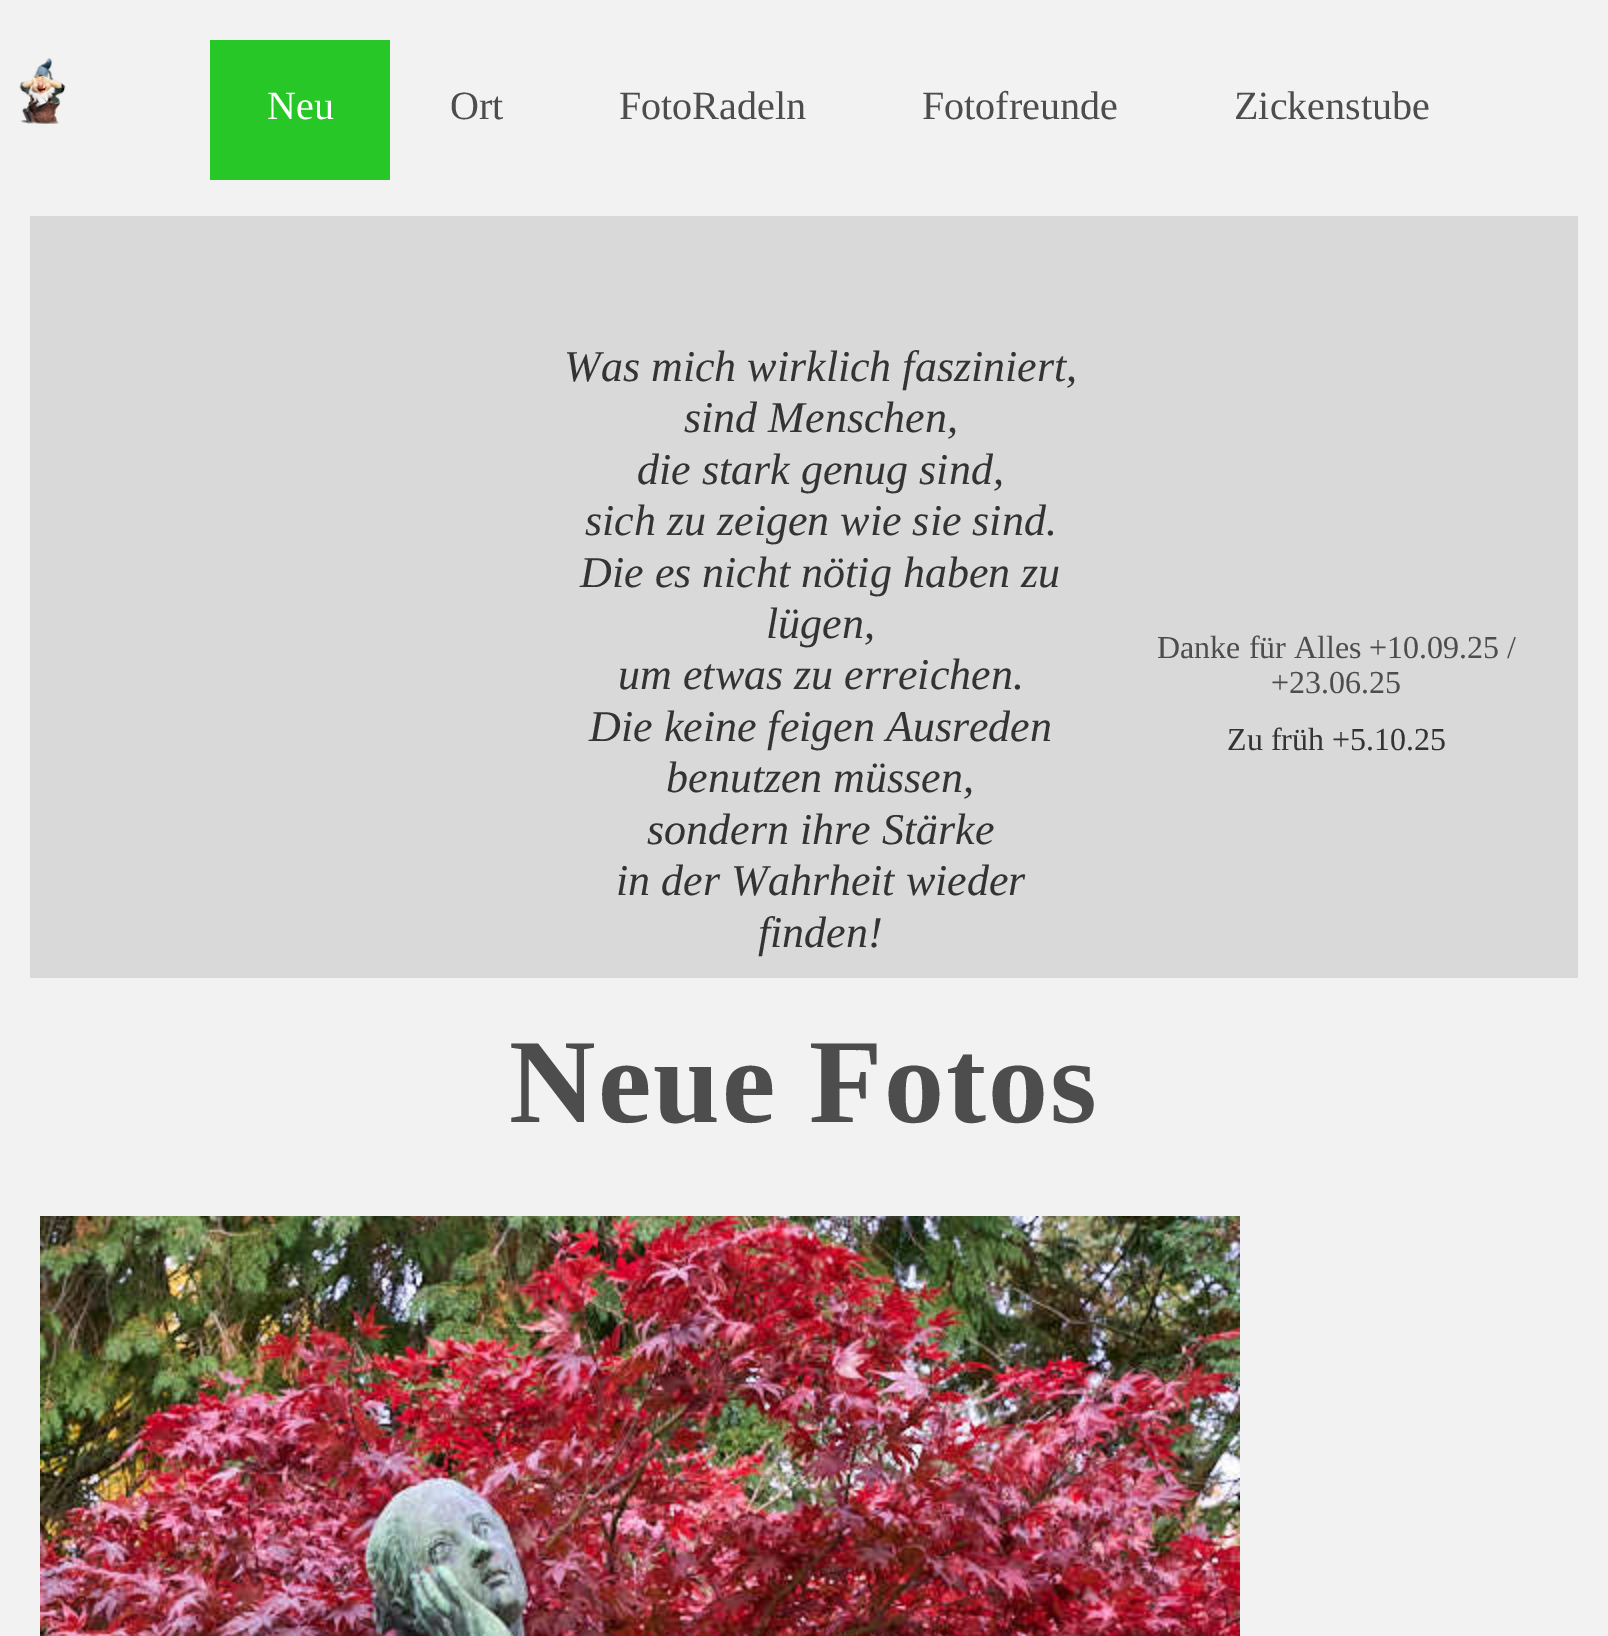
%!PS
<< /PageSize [1608 1636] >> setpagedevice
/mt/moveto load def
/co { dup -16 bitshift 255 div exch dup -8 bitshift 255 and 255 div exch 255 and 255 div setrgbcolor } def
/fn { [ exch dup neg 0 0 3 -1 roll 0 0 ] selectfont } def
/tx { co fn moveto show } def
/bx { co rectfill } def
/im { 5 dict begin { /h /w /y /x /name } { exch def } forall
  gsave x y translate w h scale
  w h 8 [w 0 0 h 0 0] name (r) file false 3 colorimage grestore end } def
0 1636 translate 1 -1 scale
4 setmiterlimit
0 0 1608 1636 16#F2F2F2 bx
(media/1.raw) 19 58 47 66 im
210 40 180 140 16#27C727 bx
30 216 1548 64 16#D9D9D9 bx
30 280 1548 698 16#D9D9D9 bx
(media/2.raw) 40 1216 1200 420 im
(Neu) 267 119 /LiberationSerif-Regular 40 16#FFFFFF tx
(Ort) 450 119 /LiberationSerif-Regular 40 16#4D4D4D tx
(FotoRadeln) 619 119 /LiberationSerif-Regular 40 16#4D4D4D tx
(Fotofreunde) 922 119 /LiberationSerif-Regular 40 16#4D4D4D tx
(Zickenstube) 1234 119 /LiberationSerif-Regular 40 16#4D4D4D tx
(Was mich wirklich fasziniert,) 564 381 /LiberationSerif-Italic 44 16#333333 tx
(sind Menschen,) 684 432 /LiberationSerif-Italic 44 16#333333 tx
(die stark genug sind,) 637 484 /LiberationSerif-Italic 44 16#333333 tx
(sich zu zeigen wie sie sind.) 585 535 /LiberationSerif-Italic 44 16#333333 tx
(Die es nicht nötig haben zu) 580 587 /LiberationSerif-Italic 44 16#333333 tx
(lügen,) 766 638 /LiberationSerif-Italic 44 16#333333 tx
(um etwas zu erreichen.) 618 689 /LiberationSerif-Italic 44 16#333333 tx
(Die keine feigen Ausreden) 589 741 /LiberationSerif-Italic 44 16#333333 tx
(benutzen müssen,) 666 792 /LiberationSerif-Italic 44 16#333333 tx
(sondern ihre Stärke) 647 844 /LiberationSerif-Italic 44 16#333333 tx
(in der Wahrheit wieder) 616 895 /LiberationSerif-Italic 44 16#333333 tx
(finden!) 758 947 /LiberationSerif-Italic 44 16#333333 tx
(Danke für Alles +10.09.25 /) 1157 658 /LiberationSerif-Regular 32 16#4D4D4D tx
(+23.06.25) 1271 693 /LiberationSerif-Regular 32 16#4D4D4D tx
(Zu früh +5.10.25) 1227 750 /LiberationSerif-Regular 32 16#333333 tx
/LiberationSerif-Bold 120 fn
16#4D4D4D co
509 1122 mt 2 0 (Neue Fotos) ashow
showpage
